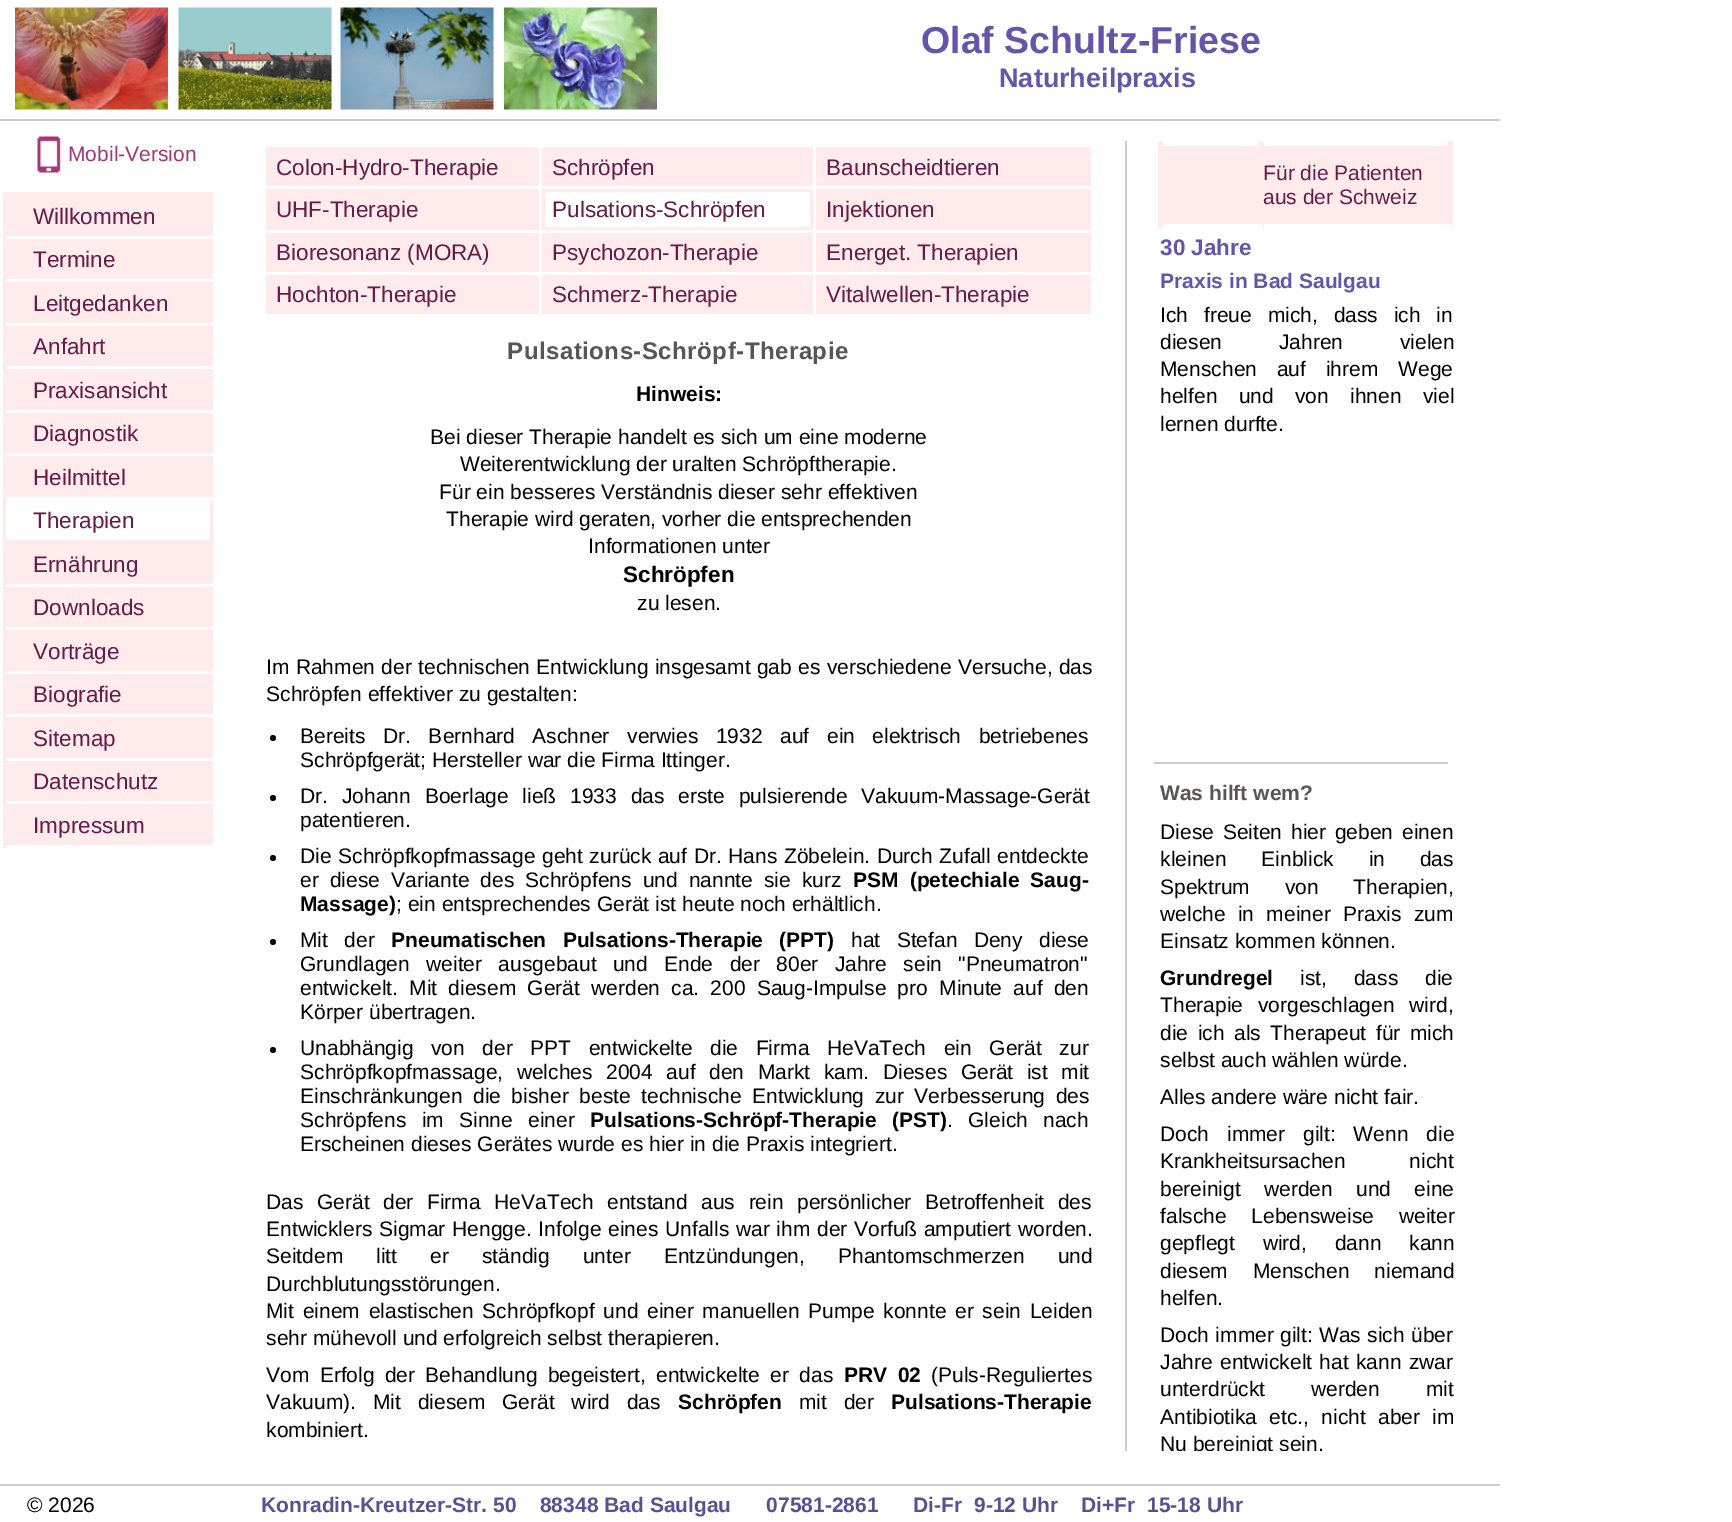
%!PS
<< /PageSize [1732 1522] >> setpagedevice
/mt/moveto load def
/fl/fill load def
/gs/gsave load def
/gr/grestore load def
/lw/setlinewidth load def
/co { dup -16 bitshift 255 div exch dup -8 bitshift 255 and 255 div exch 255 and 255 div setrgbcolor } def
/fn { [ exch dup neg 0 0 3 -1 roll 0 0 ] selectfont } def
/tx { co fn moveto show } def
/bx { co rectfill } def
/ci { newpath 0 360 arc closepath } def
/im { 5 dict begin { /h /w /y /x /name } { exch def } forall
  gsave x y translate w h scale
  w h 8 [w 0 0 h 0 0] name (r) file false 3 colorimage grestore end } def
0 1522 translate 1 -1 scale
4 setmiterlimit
0 0 1732 1522 16#FFFFFF bx
0 119 1500 2 16#CCCCCC bx
(media/1.raw) 15 7 153 103 im
(media/2.raw) 178 7 154 103 im
(media/3.raw) 340 7 154 103 im
(media/4.raw) 504 7 153 103 im
(media/5.raw) 37 136 24 37 im
6 195 204 41 16#FFEBEB bx
3 192 210 3 16#FFEBEB bx
3 540 210 3 16#FFEBEB bx
210 584 3 264 16#FFEBEB bx
210 236 3 351 16#FFEBEB bx
210 192 3 47 16#FFEBEB bx
3 801 3 47 16#FFEBEB bx
3 801 210 3 16#FFFFFF bx
3 758 3 46 16#FFEBEB bx
3 758 210 3 16#FFFFFF bx
3 714 3 47 16#FFEBEB bx
3 714 210 3 16#FFFFFF bx
3 671 3 46 16#FFEBEB bx
3 671 210 3 16#FFFFFF bx
3 627 3 47 16#FFEBEB bx
3 627 210 3 16#FFFFFF bx
3 584 3 46 16#FFEBEB bx
3 584 210 3 16#FFFFFF bx
3 497 3 90 16#FFEBEB bx
3 497 210 3 16#FFFFFF bx
3 453 3 47 16#FFEBEB bx
3 453 210 3 16#FFFFFF bx
3 410 3 46 16#FFEBEB bx
3 410 210 3 16#FFFFFF bx
3 366 3 47 16#FFEBEB bx
3 366 210 3 16#FFFFFF bx
3 323 3 46 16#FFEBEB bx
3 323 210 3 16#FFFFFF bx
3 279 3 47 16#FFEBEB bx
3 279 210 3 16#FFFFFF bx
3 236 3 46 16#FFEBEB bx
3 236 210 3 16#FFFFFF bx
3 192 3 47 16#FFEBEB bx
6 239 204 40 16#FFEBEB bx
6 282 204 41 16#FFEBEB bx
6 326 204 40 16#FFEBEB bx
6 369 204 41 16#FFEBEB bx
6 413 204 40 16#FFEBEB bx
6 456 204 41 16#FFEBEB bx
6 543 204 41 16#FFEBEB bx
6 587 204 40 16#FFEBEB bx
6 630 204 41 16#FFEBEB bx
6 674 204 40 16#FFEBEB bx
6 717 204 41 16#FFEBEB bx
6 761 204 40 16#FFEBEB bx
6 804 204 41 16#FFEBEB bx
210 845 3 3 16#FFFFFF bx
266 147 273 39 16#FFEBEB bx
542 147 271 39 16#FFEBEB bx
816 147 275 39 16#FFEBEB bx
266 189 273 41 16#FFEBEB bx
3 lw
543.5 190.5 268 38 rectstroke
816 189 275 41 16#FFEBEB bx
266 233 273 39 16#FFEBEB bx
542 233 271 39 16#FFEBEB bx
816 233 275 39 16#FFEBEB bx
266 275 273 39 16#FFEBEB bx
542 275 271 39 16#FFEBEB bx
816 275 275 39 16#FFEBEB bx
1163 146 96 78 16#FFEBEB bx
1259 141 5 87 16#FFEBEB bx
1259 224 4 4 16#FFFFFF bx
1158 141 5 87 16#FFEBEB bx
1264 146 184 78 16#FFEBEB bx
1448 141 5 87 16#FFEBEB bx
1448 224 4 4 16#FFFFFF bx
1125 141 2 1310 16#CCCCCC bx
16#000000 co
273 738 3 ci fl
273 798 3 ci fl
273 858 3 ci fl
273 942 3 ci fl
273 1050 3 ci fl
1154 762 294 2 16#CCCCCC bx
0 1484 1500 2 16#CCCCCC bx
(Olaf Schultz-Friese) 921 53 /LiberationSans-Bold 37.5 16#6455AA tx
(Naturheilpraxis) 999 87 /LiberationSans-Bold 27 16#6455AA tx
(Mobil-Version) 68 161 /LiberationSans-Regular 21 16#A13779 tx
(Willkommen) 33 224 /LiberationSans-Regular 22.5 16#661B49 tx
(Termine) 33 267 /LiberationSans-Regular 22.5 16#661B49 tx
(Leitgedanken) 33 311 /LiberationSans-Regular 22.5 16#661B49 tx
(Anfahrt) 33 354 /LiberationSans-Regular 22.5 16#661B49 tx
(Praxisansicht) 33 398 /LiberationSans-Regular 22.5 16#661B49 tx
(Diagnostik) 33 441 /LiberationSans-Regular 22.5 16#661B49 tx
(Heilmittel) 33 485 /LiberationSans-Regular 22.5 16#661B49 tx
(Therapien) 33 528 /LiberationSans-Regular 22.5 16#661B49 tx
(Ernährung) 33 572 /LiberationSans-Regular 22.5 16#661B49 tx
(Downloads) 33 615 /LiberationSans-Regular 22.5 16#661B49 tx
(Vorträge) 33 659 /LiberationSans-Regular 22.5 16#661B49 tx
(Biografie) 33 702 /LiberationSans-Regular 22.5 16#661B49 tx
(Sitemap) 33 746 /LiberationSans-Regular 22.5 16#661B49 tx
(Datenschutz) 33 789 /LiberationSans-Regular 22.5 16#661B49 tx
(Impressum) 33 833 /LiberationSans-Regular 22.5 16#661B49 tx
(Colon-Hydro-Therapie) 276 175 /LiberationSans-Regular 22.5 16#661B49 tx
(Schröpfen) 552 175 /LiberationSans-Regular 22.5 16#661B49 tx
(Baunscheidtieren) 826 175 /LiberationSans-Regular 22.5 16#661B49 tx
(UHF-Therapie) 276 217 /LiberationSans-Regular 22.5 16#661B49 tx
(Pulsations-Schröpfen) 552 217 /LiberationSans-Regular 22.5 16#661B49 tx
(Injektionen) 826 217 /LiberationSans-Regular 22.5 16#661B49 tx
(Bioresonanz \(MORA\)) 276 260 /LiberationSans-Regular 22.5 16#661B49 tx
(Psychozon-Therapie) 552 260 /LiberationSans-Regular 22.5 16#661B49 tx
(Energet. Therapien) 826 260 /LiberationSans-Regular 22.5 16#661B49 tx
(Hochton-Therapie) 276 302 /LiberationSans-Regular 22.5 16#661B49 tx
(Schmerz-Therapie) 552 302 /LiberationSans-Regular 22.5 16#661B49 tx
(Vitalwellen-Therapie) 826 302 /LiberationSans-Regular 22.5 16#661B49 tx
(Für die Patienten) 1263 180 /LiberationSans-Regular 21 16#661B49 tx
(aus der Schweiz) 1263 204 /LiberationSans-Regular 21 16#661B49 tx
/LiberationSans-Bold 24 fn
16#595555 co
507 359 mt .5 0 (Pulsations-Schröpf-Therapie) ashow
(Hinweis:) 636 401 /LiberationSans-Bold 21 16#000000 tx
(Bei dieser Therapie handelt es sich um eine moderne) 430 444 /LiberationSans-Regular 21 16#000000 tx
(Weiterentwicklung der uralten Schröpftherapie.) 460 471 /LiberationSans-Regular 21 16#000000 tx
(Für ein besseres Verständnis dieser sehr effektiven) 439 499 /LiberationSans-Regular 21 16#000000 tx
(Therapie wird geraten, vorher die entsprechenden) 446 526 /LiberationSans-Regular 21 16#000000 tx
(Informationen unter) 588 553 /LiberationSans-Regular 21 16#000000 tx
(Schröpfen) 623 582 /LiberationSans-Bold 22.5 16#000000 tx
(zu lesen.) 637 610 /LiberationSans-Regular 21 16#000000 tx
266 674 mt .5 0 32 (Im Rahmen der technischen Entwicklung insgesamt gab es verschiedene Versuche, das) widthshow
(Schröpfen effektiver zu gestalten:) 266 701 /LiberationSans-Regular 21 16#000000 tx
300 743 mt 11.75 0 32 (Bereits Dr. Bernhard Aschner verwies 1932 auf ein elektrisch betriebenes) widthshow
(Schröpfgerät; Hersteller war die Firma Ittinger.) 300 767 /LiberationSans-Regular 21 16#000000 tx
300 803 mt 8 0 32 (Dr. Johann Boerlage ließ 1933 das erste pulsierende Vakuum-Massage-Gerät) widthshow
(patentieren.) 300 827 /LiberationSans-Regular 21 16#000000 tx
300 863 mt .75 0 32 (Die Schröpfkopfmassage geht zurück auf Dr. Hans Zöbelein. Durch Zufall entdeckte) widthshow
300 887 mt 5.25 0 32 (er diese Variante des Schröpfens und nannte sie kurz) widthshow
/LiberationSans-Bold 21 fn
853 887 mt 5.25 0 32 (PSM \(petechiale Saug-) widthshow
(Massage\)) 300 911 /LiberationSans-Bold 21 16#000000 tx
(; ein entsprechendes Gerät ist heute noch erhältlich.) 396 911 /LiberationSans-Regular 21 16#000000 tx
300 947 mt 10.5 0 32 (Mit der) widthshow
/LiberationSans-Bold 21 fn
391 947 mt 10.5 0 32 (Pneumatischen Pulsations-Therapie \(PPT\)) widthshow
/LiberationSans-Regular 21 fn
851 947 mt 10.5 0 32 (hat Stefan Deny diese) widthshow
300 971 mt 10.5 0 32 (Grundlagen weiter ausgebaut und Ende der 80er Jahre sein "Pneumatron") widthshow
300 995 mt 5.4 0 32 (entwickelt. Mit diesem Gerät werden ca. 200 Saug-Impulse pro Minute auf den) widthshow
(Körper übertragen.) 300 1019 /LiberationSans-Regular 21 16#000000 tx
300 1055 mt 11.75 0 32 (Unabhängig von der PPT entwickelte die Firma HeVaTech ein Gerät zur) widthshow
300 1079 mt 7.75 0 32 (Schröpfkopfmassage, welches 2004 auf den Markt kam. Dieses Gerät ist mit) widthshow
300 1103 mt 4.75 0 32 (Einschränkungen die bisher beste technische Entwicklung zur Verbesserung des) widthshow
300 1127 mt 9.5 0 32 (Schröpfens im Sinne einer) widthshow
/LiberationSans-Bold 21 fn
590 1127 mt 9.5 0 32 (Pulsations-Schröpf-Therapie \(PST\)) widthshow
/LiberationSans-Regular 21 fn
947 1127 mt 9.5 0 32 (. Gleich nach) widthshow
(Erscheinen dieses Gerätes wurde es hier in die Praxis integriert.) 300 1151 /LiberationSans-Regular 21 16#000000 tx
266 1209 mt 7.75 0 32 (Das Gerät der Firma HeVaTech entstand aus rein persönlicher Betroffenheit des) widthshow
266 1236 mt .9 0 32 (Entwicklers Sigmar Hengge. Infolge eines Unfalls war ihm der Vorfuß amputiert worden.) widthshow
266 1263 mt 27.25 0 32 (Seitdem litt er ständig unter Entzündungen, Phantomschmerzen und) widthshow
(Durchblutungsstörungen.) 266 1291 /LiberationSans-Regular 21 16#000000 tx
266 1318 mt 2.9 0 32 (Mit einem elastischen Schröpfkopf und einer manuellen Pumpe konnte er sein Leiden) widthshow
(sehr mühevoll und erfolgreich selbst therapieren.) 266 1345 /LiberationSans-Regular 21 16#000000 tx
266 1382 mt 4.5 0 32 (Vom Erfolg der Behandlung begeistert, entwickelte er das) widthshow
/LiberationSans-Bold 21 fn
844 1382 mt 4.5 0 32 (PRV 02) widthshow
(\(Puls-Reguliertes) 931 1382 /LiberationSans-Regular 21 16#000000 tx
266 1409 mt 11 0 32 (Vakuum\). Mit diesem Gerät wird das) widthshow
(Schröpfen) 678 1409 /LiberationSans-Bold 21 16#000000 tx
/LiberationSans-Regular 21 fn
799 1409 mt 11 0 32 (mit der) widthshow
(Pulsations-Therapie) 891 1409 /LiberationSans-Bold 21 16#000000 tx
(kombiniert.) 266 1437 /LiberationSans-Regular 21 16#000000 tx
(30 Jahre) 1160 255 /LiberationSans-Bold 22.5 16#6455AA tx
(Praxis in Bad Saulgau) 1160 288 /LiberationSans-Bold 21 16#6455AA tx
/LiberationSans-Regular 21 fn
16#000000 co
1160 322 mt 10 0 32 (Ich freue mich, dass ich in) widthshow
1160 349 mt 51 0 32 (diesen Jahren vielen) widthshow
1160 376 mt 14 0 32 (Menschen auf ihrem Wege) widthshow
1160 403 mt 15.5 0 32 (helfen und von ihnen viel) widthshow
(lernen durfte.) 1160 431 /LiberationSans-Regular 21 16#000000 tx
(Was hilft wem?) 1160 800 /LiberationSans-Bold 21 16#595555 tx
/LiberationSans-Regular 21 fn
16#000000 co
1160 839 mt 3 0 32 (Diese Seiten hier geben einen) widthshow
1160 866 mt 29 0 32 (kleinen Einblick in das) widthshow
1160 894 mt 29 0 32 (Spektrum von Therapien,) widthshow
1160 921 mt 6.5 0 32 (welche in meiner Praxis zum) widthshow
(Einsatz kommen können.) 1160 948 /LiberationSans-Regular 21 16#000000 tx
(Grundregel) 1160 985 /LiberationSans-Bold 21 16#000000 tx
/LiberationSans-Regular 21 fn
1300 985 mt 21 0 32 (ist, dass die) widthshow
1160 1012 mt 9 0 32 (Therapie vorgeschlagen wird,) widthshow
1160 1040 mt 3.75 0 32 (die ich als Therapeut für mich) widthshow
(selbst auch wählen würde.) 1160 1067 /LiberationSans-Regular 21 16#000000 tx
(Alles andere wäre nicht fair.) 1160 1104 /LiberationSans-Regular 21 16#000000 tx
1160 1141 mt 12 0 32 (Doch immer gilt: Wenn die) widthshow
1160 1168 mt 58 0 32 (Krankheitsursachen nicht) widthshow
1160 1196 mt 17.5 0 32 (bereinigt werden und eine) widthshow
1160 1223 mt 19 0 32 (falsche Lebensweise weiter) widthshow
1160 1250 mt 22 0 32 (gepflegt wird, dann kann) widthshow
1160 1278 mt 19 0 32 (diesem Menschen niemand) widthshow
(helfen.) 1160 1305 /LiberationSans-Regular 21 16#000000 tx
1160 1342 mt .5 0 32 (Doch immer gilt: Was sich über) widthshow
1160 1369 mt 1.5 0 32 (Jahre entwickelt hat kann zwar) widthshow
1160 1396 mt 40 0 32 (unterdrückt werden mit) widthshow
1160 1424 mt 6.5 0 32 (Antibiotika etc., nicht aber im) widthshow
gs
263 141 1237 1310 rectclip
(Nu bereinigt sein.) 1160 1451 /LiberationSans-Regular 21 16#000000 tx
gr
(© 2026) 27 1512 /LiberationSans-Regular 21 16#000000 tx
(Konradin-Kreutzer-Str. 50    88348 Bad Saulgau      07581-2861      Di-Fr  9-12 Uhr    Di+Fr  15-18 Uhr) 261 1512 /LiberationSans-Bold 21 16#595093 tx
showpage
